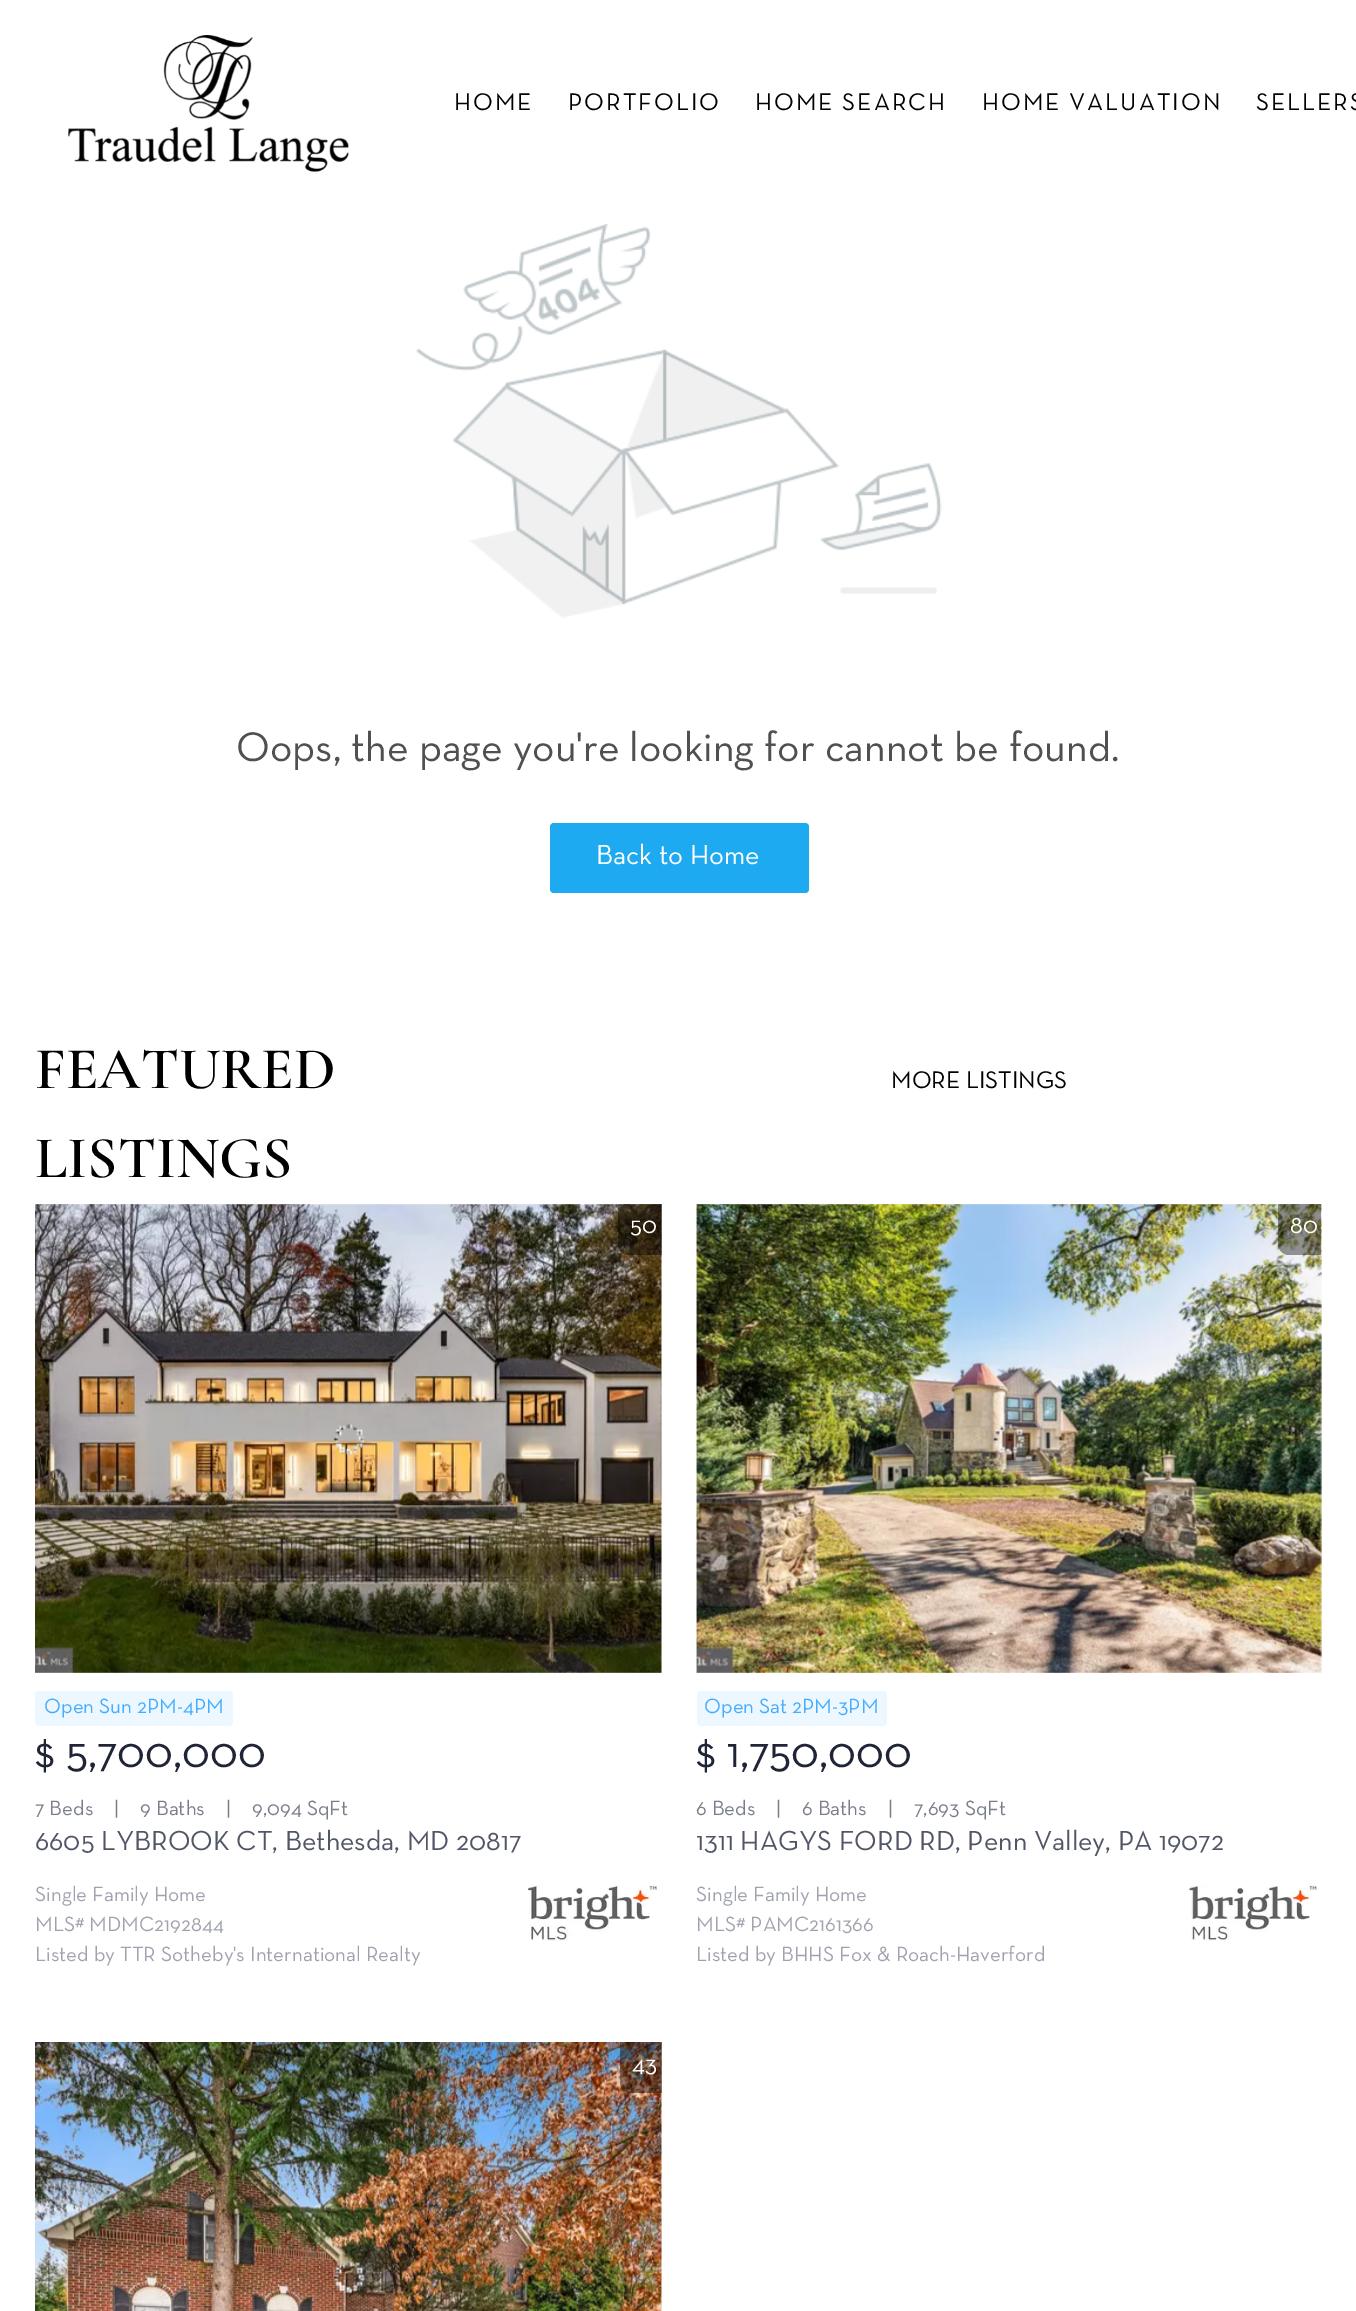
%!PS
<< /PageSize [1356 2311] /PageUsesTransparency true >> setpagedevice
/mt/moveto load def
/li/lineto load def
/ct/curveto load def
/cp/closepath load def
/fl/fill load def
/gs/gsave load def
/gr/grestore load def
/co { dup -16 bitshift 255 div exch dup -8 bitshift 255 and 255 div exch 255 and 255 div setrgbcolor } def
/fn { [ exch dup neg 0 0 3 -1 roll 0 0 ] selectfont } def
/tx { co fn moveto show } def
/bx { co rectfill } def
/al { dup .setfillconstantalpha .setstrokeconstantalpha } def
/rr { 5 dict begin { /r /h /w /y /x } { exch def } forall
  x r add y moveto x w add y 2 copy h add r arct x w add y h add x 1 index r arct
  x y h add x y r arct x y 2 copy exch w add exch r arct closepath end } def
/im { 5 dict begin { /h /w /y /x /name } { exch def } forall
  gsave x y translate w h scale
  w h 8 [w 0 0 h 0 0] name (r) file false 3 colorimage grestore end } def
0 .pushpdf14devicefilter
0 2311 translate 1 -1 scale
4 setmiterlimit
0 0 1356 2311 16#FFFFFF bx
(media/1.raw) 68 35 281 137 im
(media/2.raw) 416 224 526 394 im
16#1DAAF0 co
550 823 259 70 4 rr fl
(media/3.raw) 35 1204 627 469 im
(media/4.raw) 333 1424 32 32 im
0.4 al
16#000000 co
618 1204 mt 662 1204 li 662 1255 li 629 1255 li 623 1255 618 1250 618 1244 ct cp fl
1 al
16#ECF7FF co
35 1691 198 35 4 rr fl
(media/5.raw) 527 1884 130 57 im
(media/6.raw) 696 1204 626 469 im
(media/7.raw) 993 1423 32 33 im
0.4 al
16#000000 co
1278 1204 mt 1321 1204 li 1321 1255 li 1289 1255 li 1283 1255 1278 1250 1278 1244 ct cp fl
1 al
16#ECF7FF co
697 1691 190 35 4 rr fl
(media/8.raw) 1188 1884 129 57 im
(media/9.raw) 35 2042 627 269 im
(media/10.raw) 333 2262 32 32 im
0.4 al
16#000000 co
620 2042 mt 662 2042 li 662 2093 li 631 2093 li 625 2093 620 2088 620 2082 ct cp fl
/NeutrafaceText-Regular 24.5 fn
1 al
454 110 mt 2 0 (HOME) ashow
568 110 mt 2 0 (PORTFOLIO) ashow
755 110 mt 2 0 (HOME SEARCH) ashow
982 110 mt 2 0 (HOME VALUATION) ashow
1256 110 mt 2 0 (SELLERS) ashow
(Oops, the page you're looking for cannot be found.) 236 761 /NeutrafaceText-Regular 42 16#505050 tx
(Back to Home) 596 864 /NeutrafaceText-Regular 28 16#FFFFFF tx
(FEATURED) 35 1088 /CormorantGaramond-SemiBold 59.5 16#000000 tx
(LISTINGS) 35 1177 /CormorantGaramond-SemiBold 59.5 16#000000 tx
(MORE LISTINGS) 891 1088 /NeutrafaceText-Regular 24.5 16#000000 tx
(50) 630 1233 /NeutrafaceText-Regular 24.5 16#FFFFFF tx
(Open Sun 2PM-4PM) 44 1713 /NeutrafaceText-Regular 21 16#45ADFF tx
($ 5,700,000) 35 1767 /NeutrafaceText-Regular 45.5 16#202437 tx
(7 Beds) 35 1815 /NeutrafaceText-Regular 21 16#797E8B tx
(|) 114 1815 /NeutrafaceText-Regular 21 16#797E8B tx
(9 Baths) 140 1815 /NeutrafaceText-Regular 21 16#797E8B tx
(|) 226 1815 /NeutrafaceText-Regular 21 16#797E8B tx
(9,094 SqFt) 252 1815 /NeutrafaceText-Regular 21 16#797E8B tx
(6605 LYBROOK CT, Bethesda, MD 20817) 35 1850 /NeutrafaceText-Regular 28 16#515666 tx
(Single Family Home) 35 1901 /NeutrafaceText-Regular 21 16#A0A3AF tx
(MLS# MDMC2192844) 35 1931 /NeutrafaceText-Regular 21 16#A0A3AF tx
(Listed by TTR Sotheby's International Realty) 35 1961 /NeutrafaceText-Regular 21 16#A0A3AF tx
(80) 1290 1233 /NeutrafaceText-Regular 24.5 16#FFFFFF tx
(Open Sat 2PM-3PM) 704 1713 /NeutrafaceText-Regular 21 16#45ADFF tx
($ 1,750,000) 696 1767 /NeutrafaceText-Regular 45.5 16#202437 tx
(6 Beds) 696 1815 /NeutrafaceText-Regular 21 16#797E8B tx
(|) 776 1815 /NeutrafaceText-Regular 21 16#797E8B tx
(6 Baths) 802 1815 /NeutrafaceText-Regular 21 16#797E8B tx
(|) 888 1815 /NeutrafaceText-Regular 21 16#797E8B tx
(7,693 SqFt) 914 1815 /NeutrafaceText-Regular 21 16#797E8B tx
gs
697 1825 624 35 rectclip
(1311 HAGYS FORD RD, Penn Valley, PA 19072) 696 1850 /NeutrafaceText-Regular 28 16#515666 tx
gr
(Single Family Home) 696 1901 /NeutrafaceText-Regular 21 16#A0A3AF tx
(MLS# PAMC2161366) 696 1931 /NeutrafaceText-Regular 21 16#A0A3AF tx
(Listed by BHHS Fox & Roach-Haverford) 696 1961 /NeutrafaceText-Regular 21 16#A0A3AF tx
(43) 632 2072 /NeutrafaceText-Regular 24.5 16#FFFFFF tx
.poppdf14devicefilter showpage
